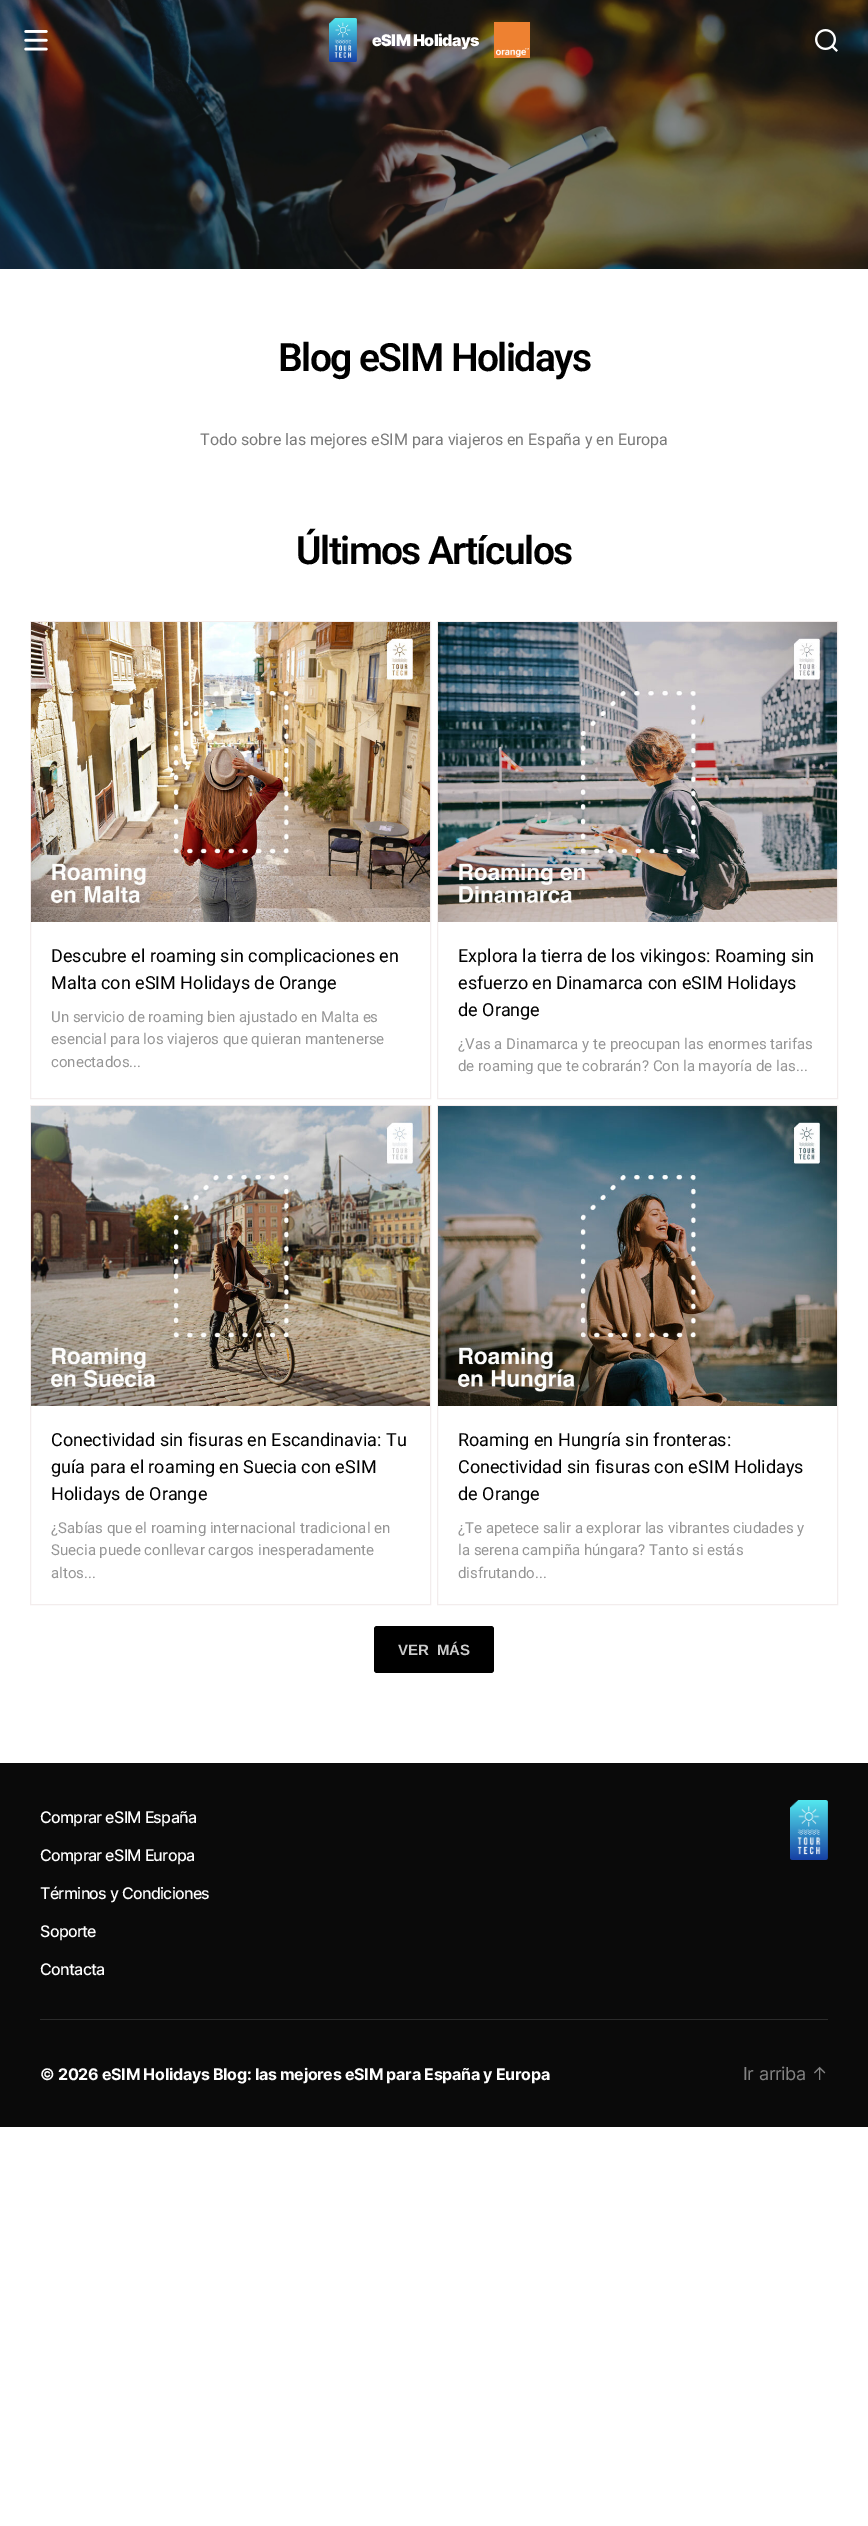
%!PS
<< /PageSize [868 2526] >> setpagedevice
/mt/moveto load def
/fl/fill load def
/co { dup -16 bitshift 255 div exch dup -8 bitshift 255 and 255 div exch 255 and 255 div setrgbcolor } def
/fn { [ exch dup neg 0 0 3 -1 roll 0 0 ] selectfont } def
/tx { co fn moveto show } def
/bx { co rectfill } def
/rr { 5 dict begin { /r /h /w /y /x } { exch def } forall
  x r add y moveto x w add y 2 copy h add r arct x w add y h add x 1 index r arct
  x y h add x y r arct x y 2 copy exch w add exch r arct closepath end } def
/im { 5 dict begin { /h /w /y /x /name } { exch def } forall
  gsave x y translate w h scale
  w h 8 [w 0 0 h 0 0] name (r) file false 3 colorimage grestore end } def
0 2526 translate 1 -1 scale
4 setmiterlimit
0 0 868 2526 16#FFFFFF bx
(media/5.raw) 0 0 868 269 im
(media/1.raw) 24 30 24 21 im
(media/2.raw) 329 18 28 44 im
(media/3.raw) 494 22 36 36 im
(media/4.raw) 815 29 23 23 im
16#F3EDED co
30.5 621.5 400 477 rectstroke
(media/6.raw) 31 622 399 300 im
437.5 621.5 400 477 rectstroke
(media/7.raw) 438 622 399 300 im
30.5 1105.5 400 499 rectstroke
(media/8.raw) 31 1106 399 300 im
437.5 1105.5 400 499 rectstroke
(media/9.raw) 438 1106 399 300 im
16#000000 co
374 1626 120 47 3 rr fl
0 1763 868 364 16#0A0A0A bx
40 2019 788 1 16#2B2B2B bx
(media/10.raw) 790 1800 38 60 im
/Inter-Black 16 fn
16#FFFFFF co
372 46 mt -.5 0 (eSIM Holidays) ashow
/Roboto-SemiBold 39 fn
16#000000 co
278 371 mt -1.6 0 (Blog eSIM Holidays) ashow
(Todo sobre las mejores eSIM para viajeros en España y en Europa) 200 445 /Roboto-Regular 16 16#7A7A7A tx
/Roboto-SemiBold 39 fn
16#000000 co
296 564 mt -1.6 0 (Últimos Artículos) ashow
(Descubre el roaming sin complicaciones en) 51 962 /Roboto-Regular 18 16#000000 tx
(Malta con eSIM Holidays de Orange) 51 989 /Roboto-Regular 18 16#000000 tx
(Un servicio de roaming bien ajustado en Malta es) 51 1022 /Roboto-Regular 15 16#969696 tx
(esencial para los viajeros que quieran mantenerse) 51 1044 /Roboto-Regular 15 16#969696 tx
(conectados...) 51 1067 /Roboto-Regular 15 16#969696 tx
(Explora la tierra de los vikingos: Roaming sin) 458 962 /Roboto-Regular 18 16#000000 tx
(esfuerzo en Dinamarca con eSIM Holidays) 458 989 /Roboto-Regular 18 16#000000 tx
(de Orange) 458 1016 /Roboto-Regular 18 16#000000 tx
(¿Vas a Dinamarca y te preocupan las enormes tarifas) 458 1049 /Roboto-Regular 15 16#969696 tx
(de roaming que te cobrarán? Con la mayoría de las...) 458 1071 /Roboto-Regular 15 16#969696 tx
(Conectividad sin fisuras en Escandinavia: Tu) 51 1446 /Roboto-Regular 18 16#000000 tx
(guía para el roaming en Suecia con eSIM) 51 1473 /Roboto-Regular 18 16#000000 tx
(Holidays de Orange) 51 1500 /Roboto-Regular 18 16#000000 tx
(¿Sabías que el roaming internacional tradicional en) 51 1533 /Roboto-Regular 15 16#969696 tx
(Suecia puede conllevar cargos inesperadamente) 51 1555 /Roboto-Regular 15 16#969696 tx
(altos...) 51 1578 /Roboto-Regular 15 16#969696 tx
(Roaming en Hungría sin fronteras:) 458 1446 /Roboto-Regular 18 16#000000 tx
(Conectividad sin fisuras con eSIM Holidays) 458 1473 /Roboto-Regular 18 16#000000 tx
(de Orange) 458 1500 /Roboto-Regular 18 16#000000 tx
(¿Te apetece salir a explorar las vibrantes ciudades y) 458 1533 /Roboto-Regular 15 16#969696 tx
(la serena campiña húngara? Tanto si estás) 458 1555 /Roboto-Regular 15 16#969696 tx
(disfrutando...) 458 1578 /Roboto-Regular 15 16#969696 tx
/LiberationSans-Bold 15 fn
16#CCCCCC co
398 1655 mt 4 0 32 (VER MÁS) widthshow
/Inter-Medium 16 fn
16#FFFFFF co
40 1823 mt -.7 0 (Comprar eSIM España) ashow
40 1861 mt -.7 0 (Comprar eSIM Europa) ashow
40 1899 mt -.7 0 (Términos y Condiciones) ashow
40 1937 mt -.7 0 (Soporte) ashow
40 1975 mt -.7 0 (Contacta) ashow
/Inter-Bold 16 fn
40 2080 mt -.27 0 (© 2026 eSIM Holidays Blog: las mejores eSIM para España y Europa) ashow
/Inter-Regular 18 fn
16#828282 co
743 2080 mt -.27 0 (Ir arriba ↑) ashow
showpage
